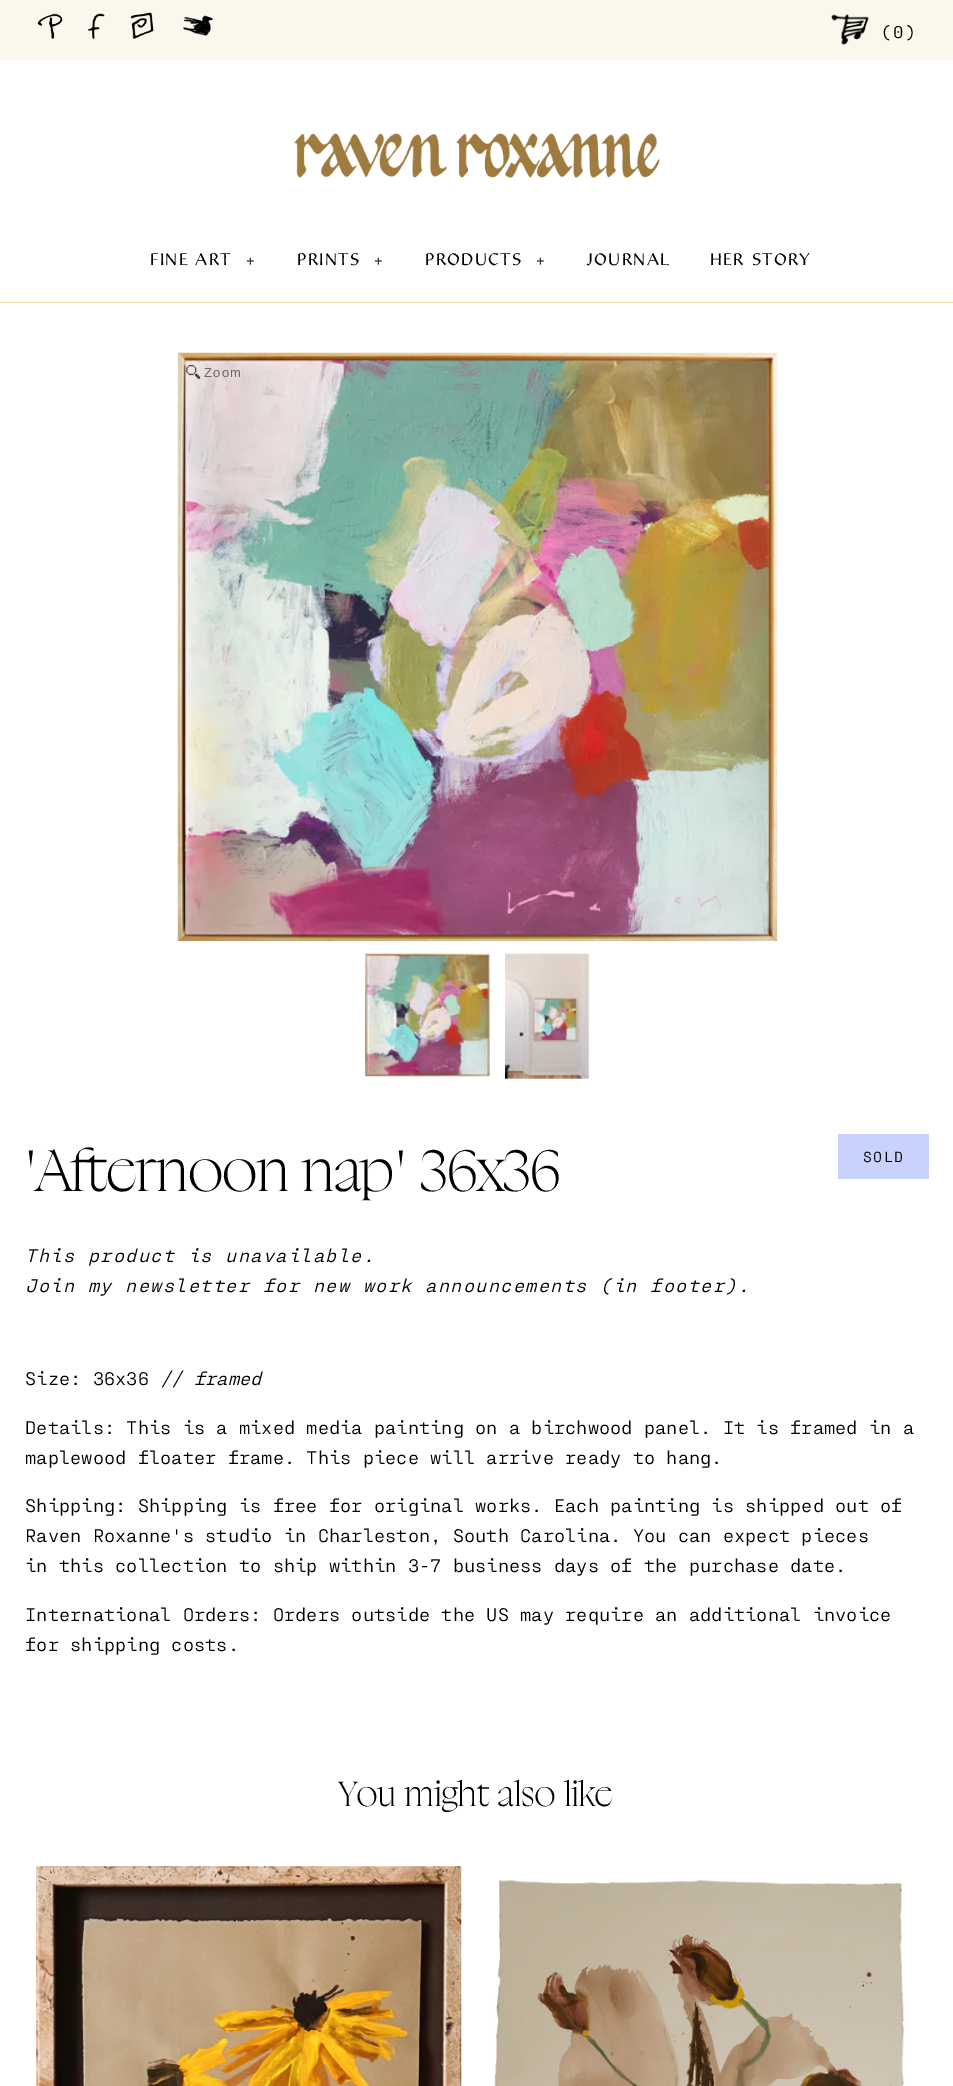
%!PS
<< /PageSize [953 2086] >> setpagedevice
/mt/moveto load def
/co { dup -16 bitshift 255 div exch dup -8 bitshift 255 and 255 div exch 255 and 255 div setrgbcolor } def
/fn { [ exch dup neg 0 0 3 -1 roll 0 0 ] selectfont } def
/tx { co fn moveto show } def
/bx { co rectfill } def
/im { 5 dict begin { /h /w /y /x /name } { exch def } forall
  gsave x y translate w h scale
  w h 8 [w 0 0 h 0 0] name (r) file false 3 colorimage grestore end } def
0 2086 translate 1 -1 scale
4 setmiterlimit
0 0 953 2086 16#ECDDAF bx
0 0 953 60 16#FAF8EC bx
(media/1.raw) 37 13 26 26 im
(media/2.raw) 88 13 17 26 im
(media/3.raw) 130 12 24 27 im
(media/4.raw) 183 15 30 21 im
(media/5.raw) 831 14 38 31 im
0 60 953 242 16#FFFFFF bx
(media/6.raw) 294 133 366 45 im
0 303 953 1783 16#FFFFFF bx
(media/7.raw) 177 352 601 590 im
(media/8.raw) 186 364 15 15 im
(media/9.raw) 365 953 125 124 im
(media/10.raw) 505 953 84 126 im
838 1134 91 45 16#C8D2FD bx
(media/11.raw) 36 1866 426 220 im
(media/12.raw) 494 1880 411 206 im
/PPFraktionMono-Regular 17.5 fn
16#000000 co
881 38 mt 1.25 0 (\(0\)) ashow
/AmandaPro-Regular 17.5 fn
150 265 mt 1.25 0 (FINE ART) ashow
246 265 mt 1.25 0 (+) ashow
297 265 mt 1.25 0 (PRINTS) ashow
374 265 mt 1.25 0 (+) ashow
425 265 mt 1.25 0 (PRODUCTS) ashow
536 265 mt 1.25 0 (+) ashow
587 265 mt 1.25 0 (JOURNAL) ashow
710 265 mt 1.25 0 (HER STORY) ashow
/LiberationSans-Regular 13 fn
16#6C6969 co
204 377 mt 1.25 0 (Zoom) ashow
/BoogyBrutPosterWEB-Thin 62.5 fn
16#000000 co
25 1191 mt 1.25 0 ('Afternoon nap' 36x36) ashow
/PPFraktionMono-Regular 15 fn
863 1162 mt 1.25 0 (SOLD) ashow
/PPFraktionMono-Italic 18.75 fn
25 1262 mt 1.25 0 (This product is unavailable.) ashow
25 1292 mt 1.25 0 (Join my newsletter for new work announcements \(in footer\).) ashow
(Size: 36x36) 25 1385 /PPFraktionMono-Regular 18.75 16#000000 tx
(// framed) 160 1385 /PPFraktionMono-Italic 18.75 16#000000 tx
(Details: This is a mixed media painting on a birchwood panel. It is framed in a) 25 1434 /PPFraktionMono-Regular 18.75 16#000000 tx
(maplewood floater frame. This piece will arrive ready to hang.) 25 1464 /PPFraktionMono-Regular 18.75 16#000000 tx
(Shipping: Shipping is free for original works. Each painting is shipped out of) 25 1512 /PPFraktionMono-Regular 18.75 16#000000 tx
(Raven Roxanne's studio in Charleston, South Carolina. You can expect pieces) 25 1542 /PPFraktionMono-Regular 18.75 16#000000 tx
(in this collection to ship within 3-7 business days of the purchase date.) 25 1572 /PPFraktionMono-Regular 18.75 16#000000 tx
(International Orders: Orders outside the US may require an additional invoice) 25 1621 /PPFraktionMono-Regular 18.75 16#000000 tx
(for shipping costs.) 25 1651 /PPFraktionMono-Regular 18.75 16#000000 tx
/BoogyBrutPosterWEB-Thin 37.5 fn
340 1806 mt 1.25 0 (You might also like) ashow
showpage
